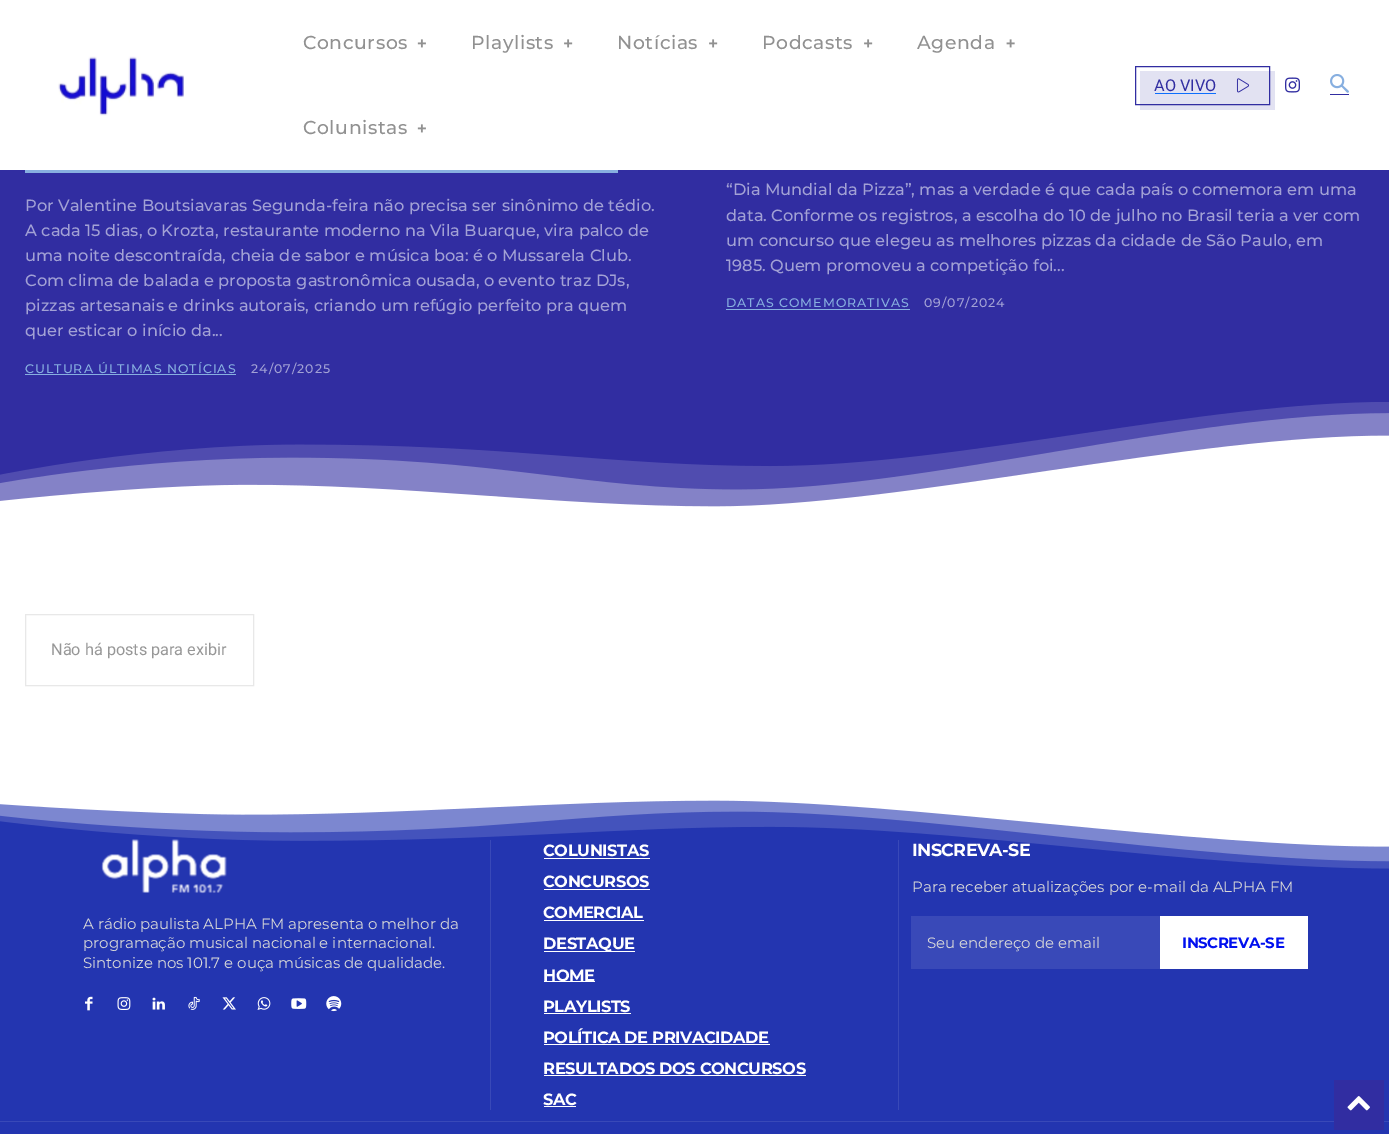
%!PS
<< /PageSize [1389 1134] >> setpagedevice
/mt/moveto load def
/co { dup -16 bitshift 255 div exch dup -8 bitshift 255 and 255 div exch 255 and 255 div setrgbcolor } def
/fn { [ exch dup neg 0 0 3 -1 roll 0 0 ] selectfont } def
/tx { co fn moveto show } def
/bx { co rectfill } def
/im { 5 dict begin { /h /w /y /x /name } { exch def } forall
  gsave x y translate w h scale
  w h 8 [w 0 0 h 0 0] name (r) file false 3 colorimage grestore end } def
0 1134 translate 1 -1 scale
4 setmiterlimit
0 0 1389 1134 16#FFFFFF bx
(media/1.raw) 58 56 126 60 im
(media/2.raw) 417 39 9 9 im
(media/3.raw) 564 39 9 9 im
(media/3.raw) 709 39 9 9 im
(media/3.raw) 864 39 9 9 im
(media/4.raw) 1006 39 9 9 im
(media/2.raw) 417 124 9 9 im
1140 71 135 39 16#E2E2F2 bx
1155 93 61 1 16#0D6EFD bx
(media/5.raw) 1236 78 14 15 im
16#312DA1 co
1135.5 66.5 134 38 rectstroke
(media/6.raw) 1285 77 15 16 im
(media/7.raw) 1330 74 19 19 im
1330 94 19 1 16#312DA1 bx
0 170 1389 337 16#312DA1 bx
25 170 593 3 16#87AFE0 bx
25 374 211 1 16#87AFE0 bx
726 309 184 1 16#87AFE0 bx
(media/8.raw) 0 402 1389 112 im
16#E8E8E8 co
25.5 614.5 228 71 rectstroke
0 800 1389 334 16#2335B0 bx
(media/9.raw) 0 796 1389 73 im
490 840 1 270 16#3949B8 bx
(media/10.raw) 101 839 126 55 im
(media/11.raw) 85 996 8 15 im
(media/12.raw) 117 997 14 13 im
(media/13.raw) 152 997 13 13 im
(media/14.raw) 188 996 12 14 im
(media/15.raw) 222 997 14 13 im
(media/16.raw) 257 997 14 13 im
(media/17.raw) 291 998 16 11 im
(media/18.raw) 326 996 16 16 im
898 840 1 270 16#3949B8 bx
544 858 106 1 16#FFFFFF bx
544 889 106 1 16#FFFFFF bx
544 920 100 1 16#FFFFFF bx
544 951 91 1 16#FFFFFF bx
544 981 51 1 16#FFFFFF bx
544 1013 87 1 16#FFFFFF bx
544 1044 226 1 16#FFFFFF bx
544 1075 262 1 16#FFFFFF bx
544 1106 32 1 16#FFFFFF bx
911 916 249 53 16#3949B8 bx
1160 916 148 53 16#FFFFFF bx
0 1121 1389 1 16#3949B8 bx
1334 1080 50 50 16#312DA1 bx
(media/19.raw) 1347 1096 23 15 im
/Montserrat-Medium 18.75 fn
16#919191 co
303 49 mt .6 0 (Concursos) ashow
471 49 mt .6 0 (Playlists) ashow
617 49 mt .6 0 (Notícias) ashow
762 49 mt .6 0 (Podcasts) ashow
917 49 mt .6 0 (Agenda) ashow
303 134 mt .6 0 (Colunistas) ashow
(AO VIVO) 1154 91 /Roboto-Regular 16.25 16#312DA1 tx
(Por Valentine Boutsiavaras Segunda-feira não precisa ser sinônimo de tédio.) 25 211 /Montserrat-Medium 16.25 16#A2A1D5 tx
(A cada 15 dias, o Krozta, restaurante moderno na Vila Buarque, vira palco de) 25 236 /Montserrat-Medium 16.25 16#A2A1D5 tx
(uma noite descontraída, cheia de sabor e música boa: é o Mussarela Club.) 25 261 /Montserrat-Medium 16.25 16#A2A1D5 tx
(Com clima de balada e proposta gastronômica ousada, o evento traz DJs,) 25 286 /Montserrat-Medium 16.25 16#A2A1D5 tx
(pizzas artesanais e drinks autorais, criando um refúgio perfeito pra quem) 25 311 /Montserrat-Medium 16.25 16#A2A1D5 tx
(quer esticar o início da...) 25 336 /Montserrat-Medium 16.25 16#A2A1D5 tx
/Montserrat-Medium 12.5 fn
16#87AFE0 co
25 373 mt 1 0 (CULTURA ÚLTIMAS NOTÍCIAS) ashow
16#A2A1D5 co
251 373 mt 1 0 (24/07/2025) ashow
(“Dia Mundial da Pizza”, mas a verdade é que cada país o comemora em uma) 726 195 /Montserrat-Medium 16.25 16#A2A1D5 tx
(data. Conforme os registros, a escolha do 10 de julho no Brasil teria a ver com) 726 221 /Montserrat-Medium 16.25 16#A2A1D5 tx
(um concurso que elegeu as melhores pizzas da cidade de São Paulo, em) 726 246 /Montserrat-Medium 16.25 16#A2A1D5 tx
(1985. Quem promoveu a competição foi...) 726 271 /Montserrat-Medium 16.25 16#A2A1D5 tx
/Montserrat-Medium 12.5 fn
16#87AFE0 co
726 307 mt 1 0 (DATAS COMEMORATIVAS) ashow
16#A2A1D5 co
924 307 mt 1 0 (09/07/2024) ashow
(Não há posts para exibir) 51 655 /Roboto-Regular 16.25 16#979797 tx
(A rádio paulista ALPHA FM apresenta o melhor da) 83 929 /Montserrat-Regular 15 16#D8D8D8 tx
(programação musical nacional e internacional.) 83 948 /Montserrat-Regular 15 16#D8D8D8 tx
(Sintonize nos 101.7 e ouça músicas de qualidade.) 83 968 /Montserrat-Regular 15 16#D8D8D8 tx
/Montserrat-Bold 16.25 fn
16#FFFFFF co
543 856 mt -.4 0 (COLUNISTAS) ashow
543 887 mt -.4 0 (CONCURSOS) ashow
543 918 mt -.4 0 (COMERCIAL) ashow
543 949 mt -.4 0 (DESTAQUE) ashow
543 981 mt -.4 0 (HOME) ashow
543 1012 mt -.4 0 (PLAYLISTS) ashow
543 1043 mt -.4 0 (POLÍTICA DE PRIVACIDADE) ashow
543 1074 mt -.4 0 (RESULTADOS DOS CONCURSOS) ashow
543 1105 mt -.4 0 (SAC) ashow
/Montserrat-Bold 17.5 fn
912 856 mt -.6 0 (INSCREVA-SE) ashow
(Para receber atualizações por e-mail da ALPHA FM) 912 892 /Montserrat-Regular 15 16#D8D8D8 tx
(Seu endereço de email) 927 948 /Montserrat-Regular 15 16#D8D8D8 tx
/Montserrat-Bold 15 fn
16#000FEF co
1182 948 mt -.4 0 (INSCREVA-SE) ashow
showpage
